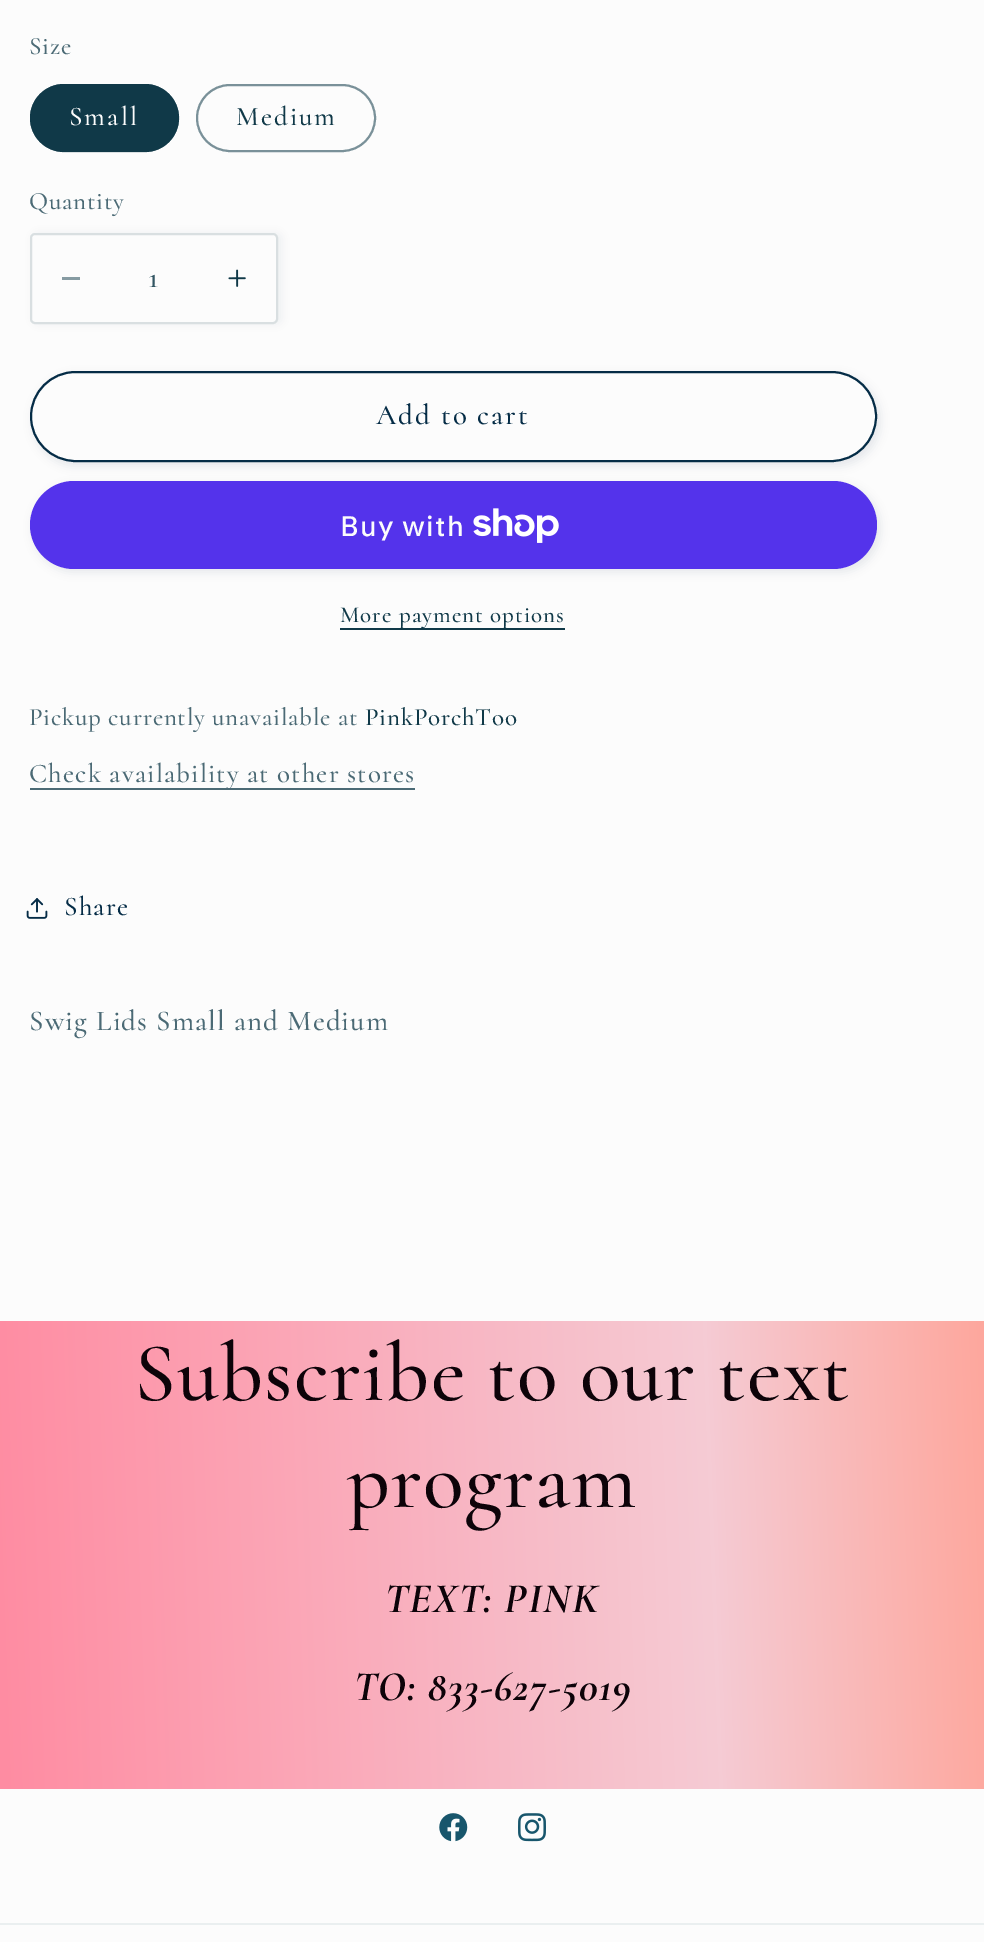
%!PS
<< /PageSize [984 1942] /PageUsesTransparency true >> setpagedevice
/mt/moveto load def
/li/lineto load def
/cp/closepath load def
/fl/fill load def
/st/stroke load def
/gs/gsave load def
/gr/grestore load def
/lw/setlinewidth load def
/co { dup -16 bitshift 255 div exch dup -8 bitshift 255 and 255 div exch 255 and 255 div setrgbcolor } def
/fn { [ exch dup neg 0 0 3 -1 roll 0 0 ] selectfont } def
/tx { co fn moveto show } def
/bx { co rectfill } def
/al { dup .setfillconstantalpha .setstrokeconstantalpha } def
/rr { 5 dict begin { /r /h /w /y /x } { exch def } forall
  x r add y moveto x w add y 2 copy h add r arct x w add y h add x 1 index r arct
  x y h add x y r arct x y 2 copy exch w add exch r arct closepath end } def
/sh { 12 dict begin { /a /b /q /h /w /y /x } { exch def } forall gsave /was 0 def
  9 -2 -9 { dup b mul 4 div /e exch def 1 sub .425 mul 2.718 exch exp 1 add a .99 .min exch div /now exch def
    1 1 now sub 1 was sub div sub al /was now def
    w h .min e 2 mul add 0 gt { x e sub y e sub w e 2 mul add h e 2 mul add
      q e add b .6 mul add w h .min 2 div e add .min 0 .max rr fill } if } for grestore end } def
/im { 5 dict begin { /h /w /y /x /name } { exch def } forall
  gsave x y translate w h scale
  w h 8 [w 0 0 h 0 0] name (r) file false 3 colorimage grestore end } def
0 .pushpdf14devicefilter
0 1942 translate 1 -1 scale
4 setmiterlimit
0 0 984 1942 16#FCFCFC bx
16#103948 co
30 84 149 68 34 rr fl
0.55 al
2 lw
31 85 147 66 33 rr st
1 al
16#7A9199 co
197 85 178 66 33 rr st
16#103948 co
33 233 249 91 5 4.5 .05 sh
16#FCFCFC co
30 233 248 91 5 rr fl
62 277 18 3 16#869BA2 bx
(media/1.raw) 228 269 18 18 im
16#D9DFE1 co
31 234 246 89 4 rr st
16#103948 co
33 375 847 91 45.5 4.5 .1 sh
16#FCFCFC co
30 371 847 91 45.5 rr fl
31 372 845 89 44.5 rr st
16#052C46 co
31 372 845 89 44.5 rr st
16#103948 co
33 485 847 87 43.5 4.5 .1 sh
16#5433EB co
30 481 847 88 44 rr fl
(media/2.raw) 473 508 86 35 im
340 628 225 2 16#103948 bx
30 788 385 2 16#4B6A75 bx
(media/3.raw) 26 898 22 21 im
gs 0 1321 mt 984 1321 li 984 1789 li 0 1789 li cp clip newpath
<< /ShadingType 2 /ColorSpace /DeviceRGB /Coords [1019 953 -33 990] /Extend [true true] /Function << /FunctionType 3 /Domain [0 1] /Functions [<< /FunctionType 2 /Domain [0 1] /C0 [1 .631 .58] /C1 [.961 .796 .831] /N 1 >> << /FunctionType 2 /Domain [0 1] /C0 [.961 .796 .831] /C1 [1 .549 .635] /N 1 >>] /Bounds [.31] /Encode [0 1 0 1] >> >> shfill gr
(media/4.raw) 439 1813 29 29 im
(media/5.raw) 518 1813 28 29 im
0 1923 984 2 16#EAEFF0 bx
/Cormorant-Medium 25 fn
16#4B6A75 co
29 54 mt .75 0 (Size) ashow
/Cormorant-Medium 27 fn
16#FCFCFC co
69 125 mt 2 0 (Small) ashow
16#103948 co
236 125 mt 2 0 (Medium) ashow
/Cormorant-Medium 25 fn
16#4B6A75 co
29 209 mt .75 0 (Quantity) ashow
(1) 148 287 /Cormorant-Medium 31 16#335663 tx
/Cormorant-Medium 28.9 fn
16#052C46 co
376 424 mt 2 0 (Add to cart) ashow
/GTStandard-Medium 28 fn
16#FCFCFC co
340 536 mt 1.15 0 (Buy with) ashow
/Cormorant-Medium 23 fn
16#103948 co
340 622 mt 1 0 (More payment options) ashow
/Cormorant-Medium 25 fn
16#4B6A75 co
29 725 mt .75 0 (Pickup currently unavailable at) ashow
16#103948 co
365 725 mt .75 0 (PinkPorchToo) ashow
/Cormorant-Medium 27 fn
16#4B6A75 co
29 782 mt 1.15 0 (Check availability at other stores) ashow
16#052C46 co
64 915 mt 1.15 0 (Share) ashow
/Cormorant-Medium 28.9 fn
16#4B6A75 co
29 1030 mt 1.15 0 (Swig Lids Small and Medium) ashow
/Cormorant-Medium 84 fn
16#0D0309 co
134 1400 mt 1.25 0 (Subscribe to our text) ashow
347 1507 mt 1.25 0 (program) ashow
/Cormorant-BoldItalic 42 fn
385 1612 mt 1.25 0 (TEXT: PINK) ashow
354 1700 mt 1.25 0 (TO: 833-627-5019) ashow
.poppdf14devicefilter showpage
